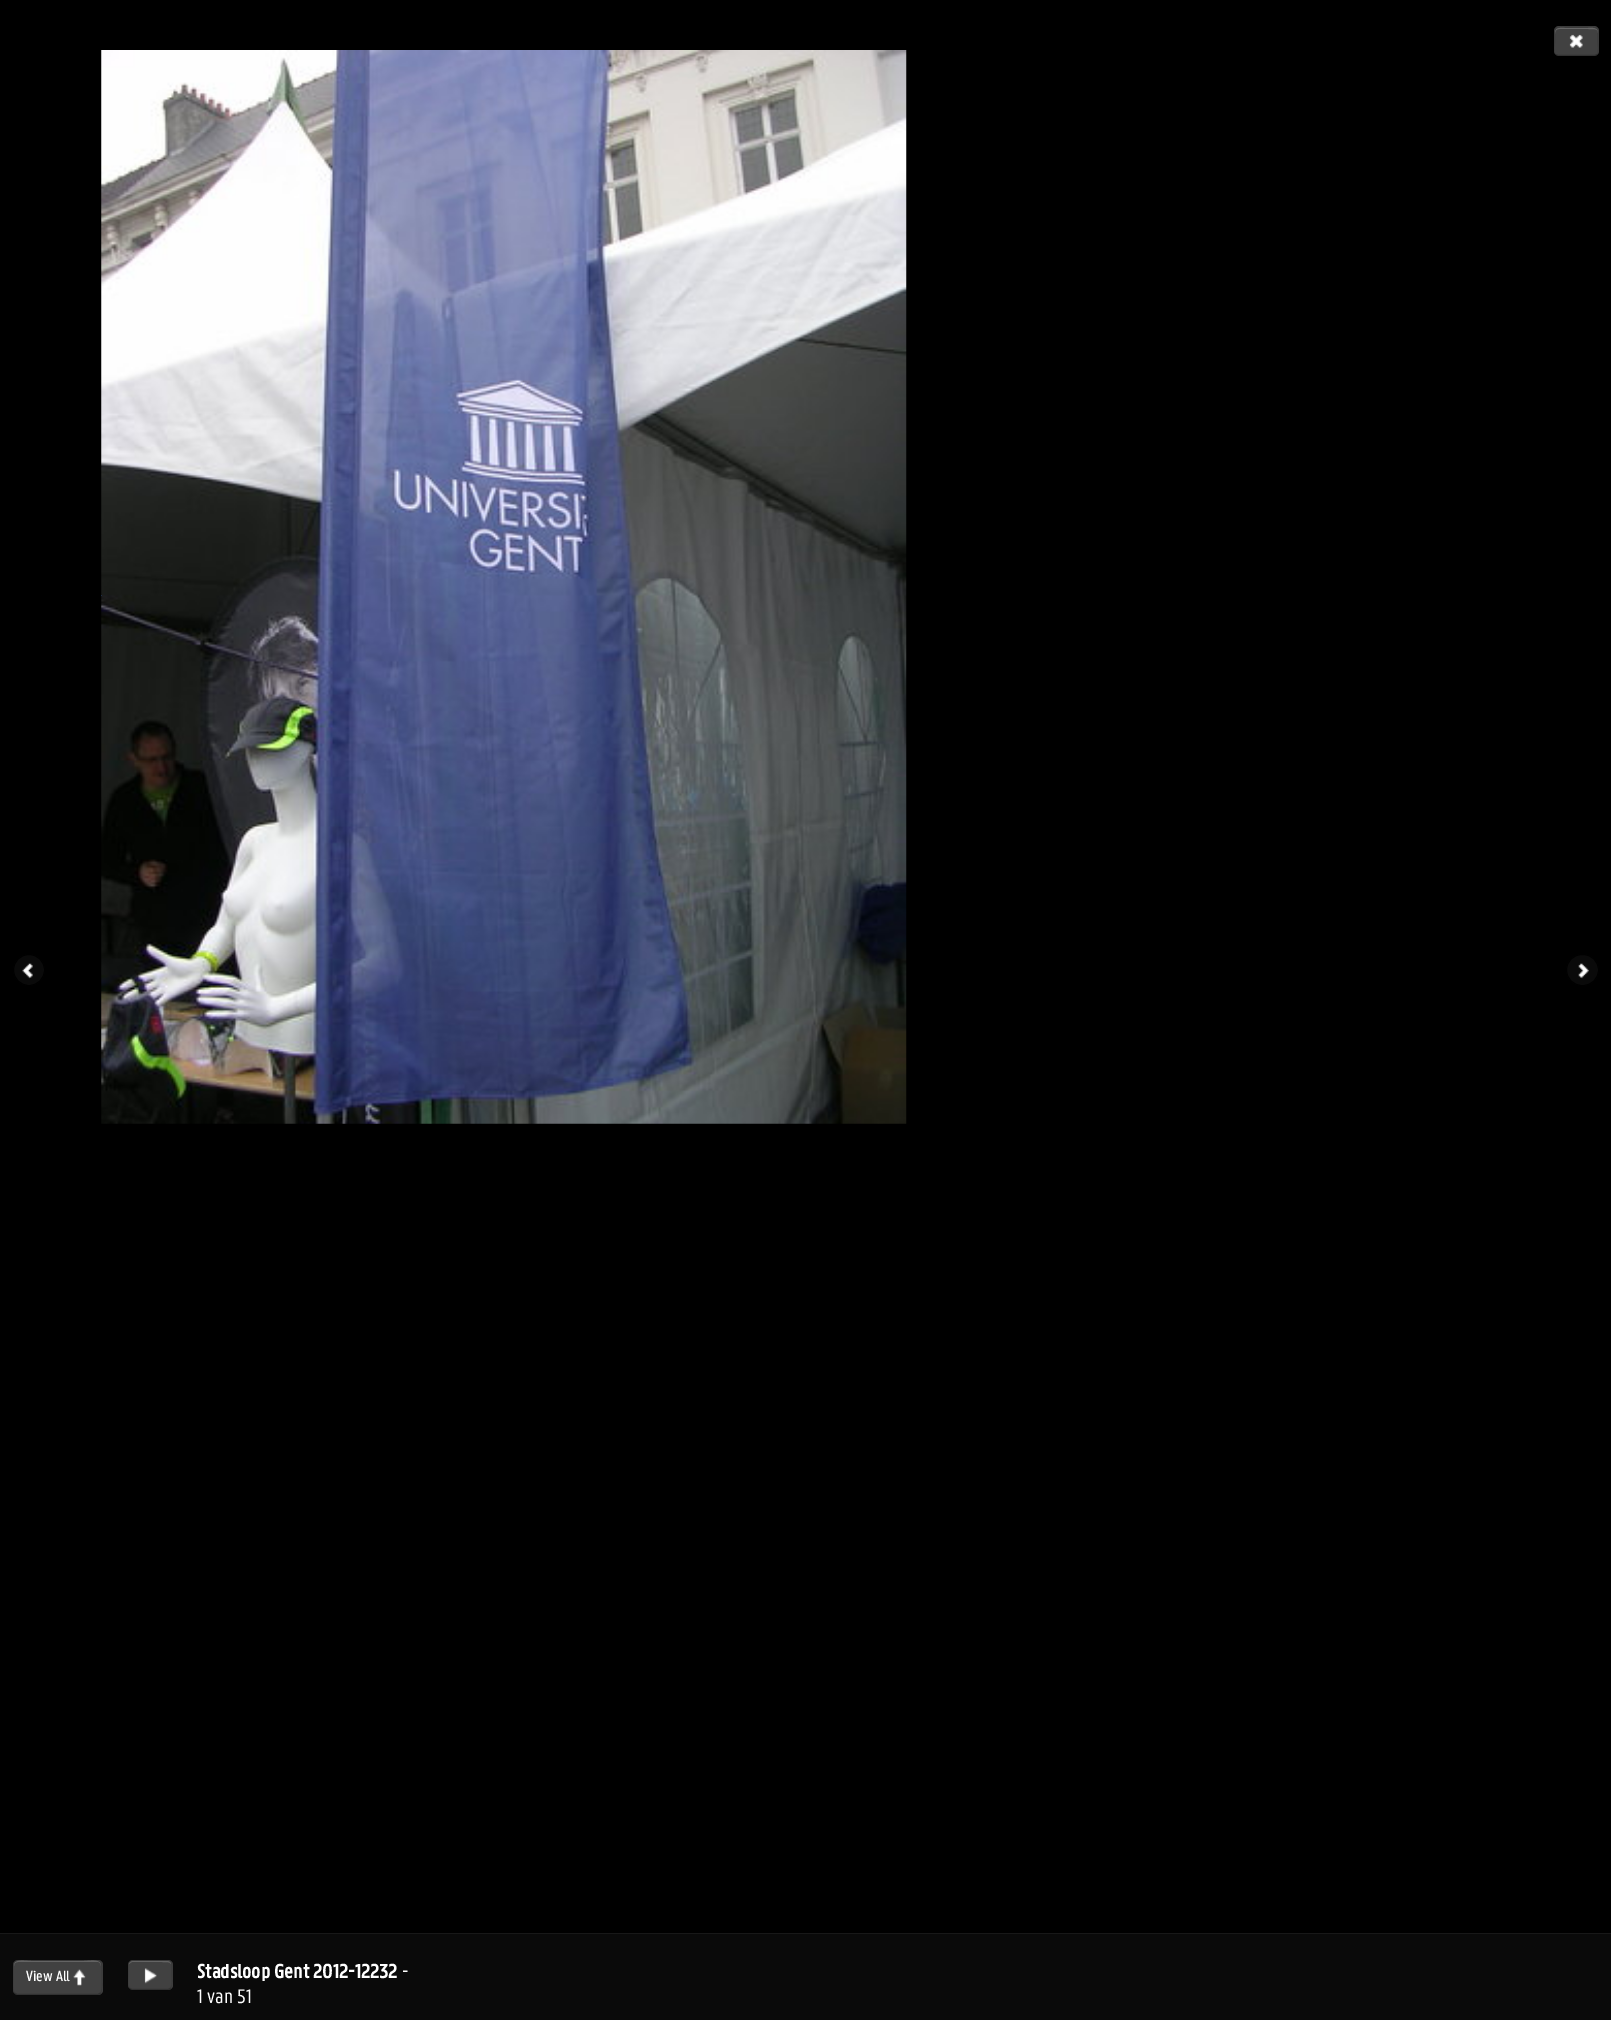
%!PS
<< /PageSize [1611 2020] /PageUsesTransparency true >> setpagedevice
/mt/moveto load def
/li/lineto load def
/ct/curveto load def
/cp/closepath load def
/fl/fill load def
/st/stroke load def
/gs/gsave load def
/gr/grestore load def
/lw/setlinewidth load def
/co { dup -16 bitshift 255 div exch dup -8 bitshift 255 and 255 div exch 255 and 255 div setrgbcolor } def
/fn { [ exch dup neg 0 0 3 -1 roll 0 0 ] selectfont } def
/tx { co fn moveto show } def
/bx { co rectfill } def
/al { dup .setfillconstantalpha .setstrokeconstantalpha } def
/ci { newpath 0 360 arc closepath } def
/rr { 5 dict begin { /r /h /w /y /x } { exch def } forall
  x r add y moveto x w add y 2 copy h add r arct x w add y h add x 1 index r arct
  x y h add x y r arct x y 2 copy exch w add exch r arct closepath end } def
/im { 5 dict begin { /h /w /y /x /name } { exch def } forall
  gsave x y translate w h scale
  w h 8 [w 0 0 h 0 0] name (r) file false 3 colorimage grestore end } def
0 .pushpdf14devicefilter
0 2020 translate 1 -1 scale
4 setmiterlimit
0 0 1611 2020 16#000000 bx
16#414141 co
1554 26 45 30 5 rr fl
16#676767 co
1559 29 mt 1588 29 li 1596 29 1598 29 1598 33 ct 1598 27 1592 28 1588 28 ct 1565 28 li 1559 28 1555 27 1555 34 ct 1555 31 1556 29 1559 29 ct cp 1555 52 mt 1555 49 li cp eofill
0.25 al
16#000000 co
1.2 lw
1597 54.5 mt 1596 55 1595 55.5 1594 55.5 ct 1559 55.5 li 1557.5 55.5 1556.5 55 1555.5 54.5 ct st
0.1 al
1555.5 54.5 mt 1553 52 1554.5 44.5 1554.5 41 ct 1554.5 30.5 li 1555.5 25.5 1561.5 27 1564.5 27 ct 1588 27 li 1591 27 1597 25.5 1598 30.5 ct 1598 41 li 1598 44.5 1599.5 52 1597 54.5 ct st
1 al
(media/1.raw) 1569 34 14 14 im
16#0A0A0A co
29 970 15.5 ci gs fl gr
16#000000 co
1 lw
st
(media/2.raw) 22 963 11 16 im
(media/3.raw) 101 50 806 1074 im
16#0A0A0A co
1566.5 954.5 32 31 15.5 rr gs fl gr
16#000000 co
st
(media/4.raw) 1578 963 11 16 im
0 1934 1611 86 16#0A0A0A bx
0 1933 1611 1 16#181818 bx
16#414141 co
13 1960 90 35 5 rr fl
16#676767 co
18 1962 mt 98 1962 li 100 1962 101 1964 101 1966 ct 101 1958 89 1961 84 1961 ct 31 1961 li 26 1961 14 1958 14 1966 ct 14 1964 15 1962 18 1962 ct cp fl
0.25 al
16#000000 co
1.2 lw
100.5 1993 mt 98 1994.5 li 17 1994.5 li 14.5 1993 li st
0.1 al
14.5 1993 mt 12 1990.5 13 1980.5 13 1977.5 ct 13 1958 10.5 1960.5 31 1960.5 ct 84 1960.5 li 104.5 1960.5 102 1958 102 1977.5 ct 102 1980.5 103 1990.5 100.5 1993 ct st
1 al
(media/5.raw) 73 1969 13 17 im
16#414141 co
128 1960 45 30 5 rr fl
16#676767 co
132 1962 mt 162 1962 li 168 1962 170 1962 171 1964 ct 171 1962 169 1961 167 1961 ct 133 1961 li 131 1961 130 1962 129 1964 ct 130 1963 131 1962 132 1962 ct cp 129 1986 mt 129 1983 li cp eofill
0.25 al
16#000000 co
170.5 1988 mt 170 1989 168.5 1989.5 167.5 1989.5 ct 132.5 1989.5 li 131.5 1989.5 130 1989 129.5 1988 ct st
0.1 al
129.5 1988 mt 127 1985.5 128 1978 128 1975 ct 128 1964 li 129 1959.5 135 1960.5 138.5 1960.5 ct 161.5 1960.5 li 165 1960.5 171 1959.5 172 1964 ct 172 1975 li 172 1978 173 1985.5 170.5 1988 ct st
1 al
(media/6.raw) 144 1968 13 16 im
(View All) 26 1981 /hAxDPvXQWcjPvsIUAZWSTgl-Medium 16 16#FFFFFF tx
(Stadsloop Gent 2012-12232) 197 1978 /hAxDPvXQWcjPvsIUAZWSTgl-Bold 21.25 16#FFFFFF tx
(-) 402 1978 /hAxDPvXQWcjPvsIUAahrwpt-Regular 21.25 16#FFFFFF tx
(1 van 51) 197 2003 /hAxDPvXQWcjPvsIUAahrwpt-Regular 21.25 16#FFFFFF tx
.poppdf14devicefilter showpage
